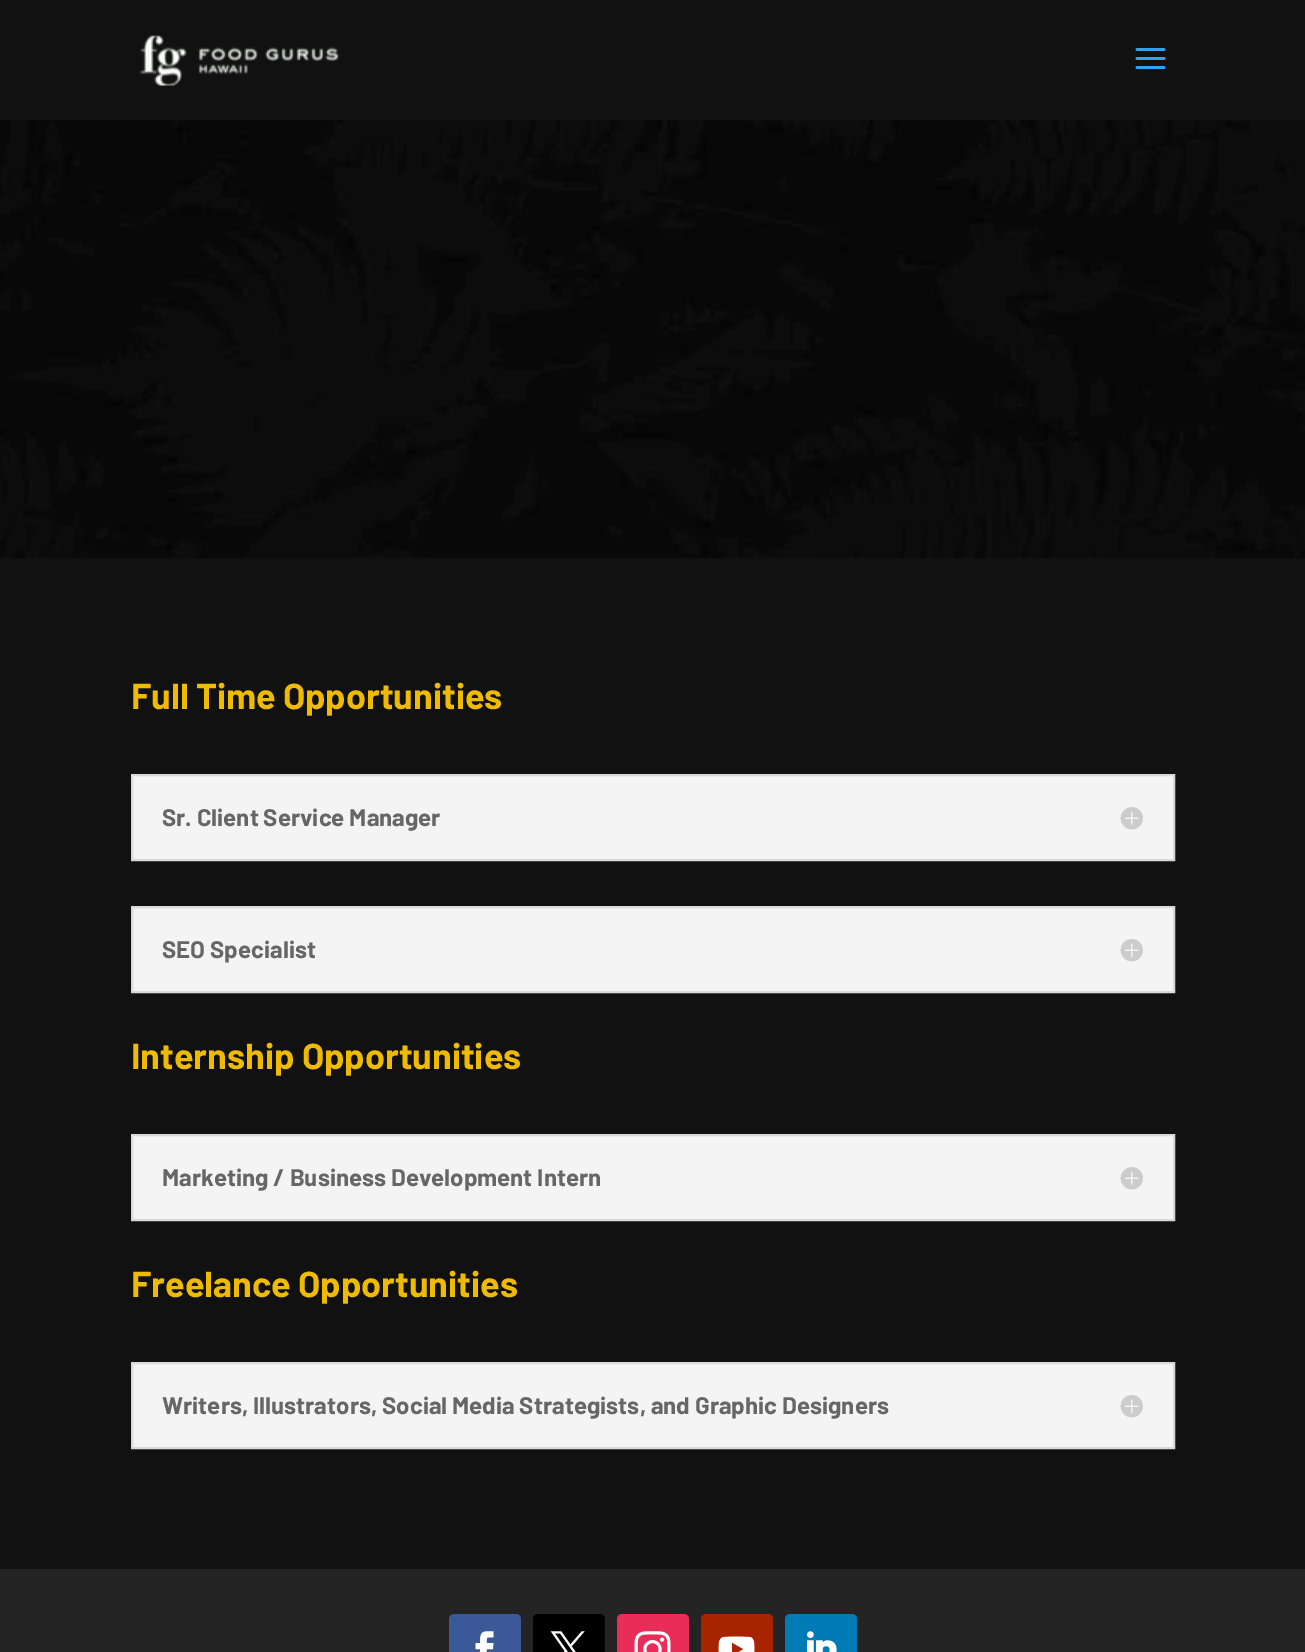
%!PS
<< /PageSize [1305 1652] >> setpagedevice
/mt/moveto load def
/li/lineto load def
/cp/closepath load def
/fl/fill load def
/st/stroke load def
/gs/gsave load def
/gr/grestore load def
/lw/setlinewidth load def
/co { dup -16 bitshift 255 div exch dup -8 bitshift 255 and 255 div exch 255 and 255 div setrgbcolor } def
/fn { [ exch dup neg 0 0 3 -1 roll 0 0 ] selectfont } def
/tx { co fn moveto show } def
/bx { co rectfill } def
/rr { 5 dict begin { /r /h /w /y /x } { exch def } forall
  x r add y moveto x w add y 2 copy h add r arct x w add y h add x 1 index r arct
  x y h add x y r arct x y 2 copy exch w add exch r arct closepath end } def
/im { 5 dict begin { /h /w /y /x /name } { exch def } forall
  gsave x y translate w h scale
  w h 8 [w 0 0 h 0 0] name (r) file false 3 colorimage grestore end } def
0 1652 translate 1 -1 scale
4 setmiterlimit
0 0 1305 1652 16#FFFFFF bx
0 0 1305 120 16#111111 bx
(media/1.raw) 139 35 201 51 im
(media/2.raw) 1135 48 31 21 im
(media/3.raw) 0 120 1305 438 im
0 558 1305 1011 16#111111 bx
16#F4F4F4 co
132 775 mt 1174 775 li 1174 860 li 132 860 li cp gs fl gr
16#D9D9D9 co
2 lw
st
(media/4.raw) 1120 807 23 23 im
16#F4F4F4 co
132 907 mt 1174 907 li 1174 992 li 132 992 li cp gs fl gr
16#D9D9D9 co
st
(media/4.raw) 1120 939 23 23 im
16#F4F4F4 co
132 1135 mt 1174 1135 li 1174 1220 li 132 1220 li cp gs fl gr
16#D9D9D9 co
st
(media/4.raw) 1120 1167 23 23 im
16#F4F4F4 co
132 1363 mt 1174 1363 li 1174 1448 li 132 1448 li cp gs fl gr
16#D9D9D9 co
st
(media/4.raw) 1120 1395 23 23 im
0 1569 1305 83 16#242424 bx
16#3B5998 co
449 1614 72 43 5 rr fl
(media/5.raw) 475 1631 19 21 im
16#000000 co
533 1614 72 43 5 rr fl
(media/6.raw) 550 1631 35 21 im
16#EA2C59 co
617 1614 72 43 5 rr fl
(media/7.raw) 634 1631 37 21 im
16#A82400 co
701 1614 72 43 5 rr fl
(media/8.raw) 718 1636 37 16 im
16#007BB6 co
785 1614 72 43 5 rr fl
(media/9.raw) 807 1631 30 21 im
(Full Time Opportunities) 131 709 /Barlow-Bold 36 16#EFBB00 tx
(Sr. Client Service Manager) 162 826 /Barlow-Bold 24 16#666666 tx
(SEO Specialist) 162 958 /Barlow-Bold 24 16#666666 tx
(Internship Opportunities) 131 1069 /Barlow-Bold 36 16#EFBB00 tx
(Marketing / Business Development Intern) 162 1186 /Barlow-Bold 24 16#666666 tx
(Freelance Opportunities) 131 1297 /Barlow-Bold 36 16#EFBB00 tx
(Writers, Illustrators, Social Media Strategists, and Graphic Designers) 162 1414 /Barlow-Bold 24 16#666666 tx
showpage
